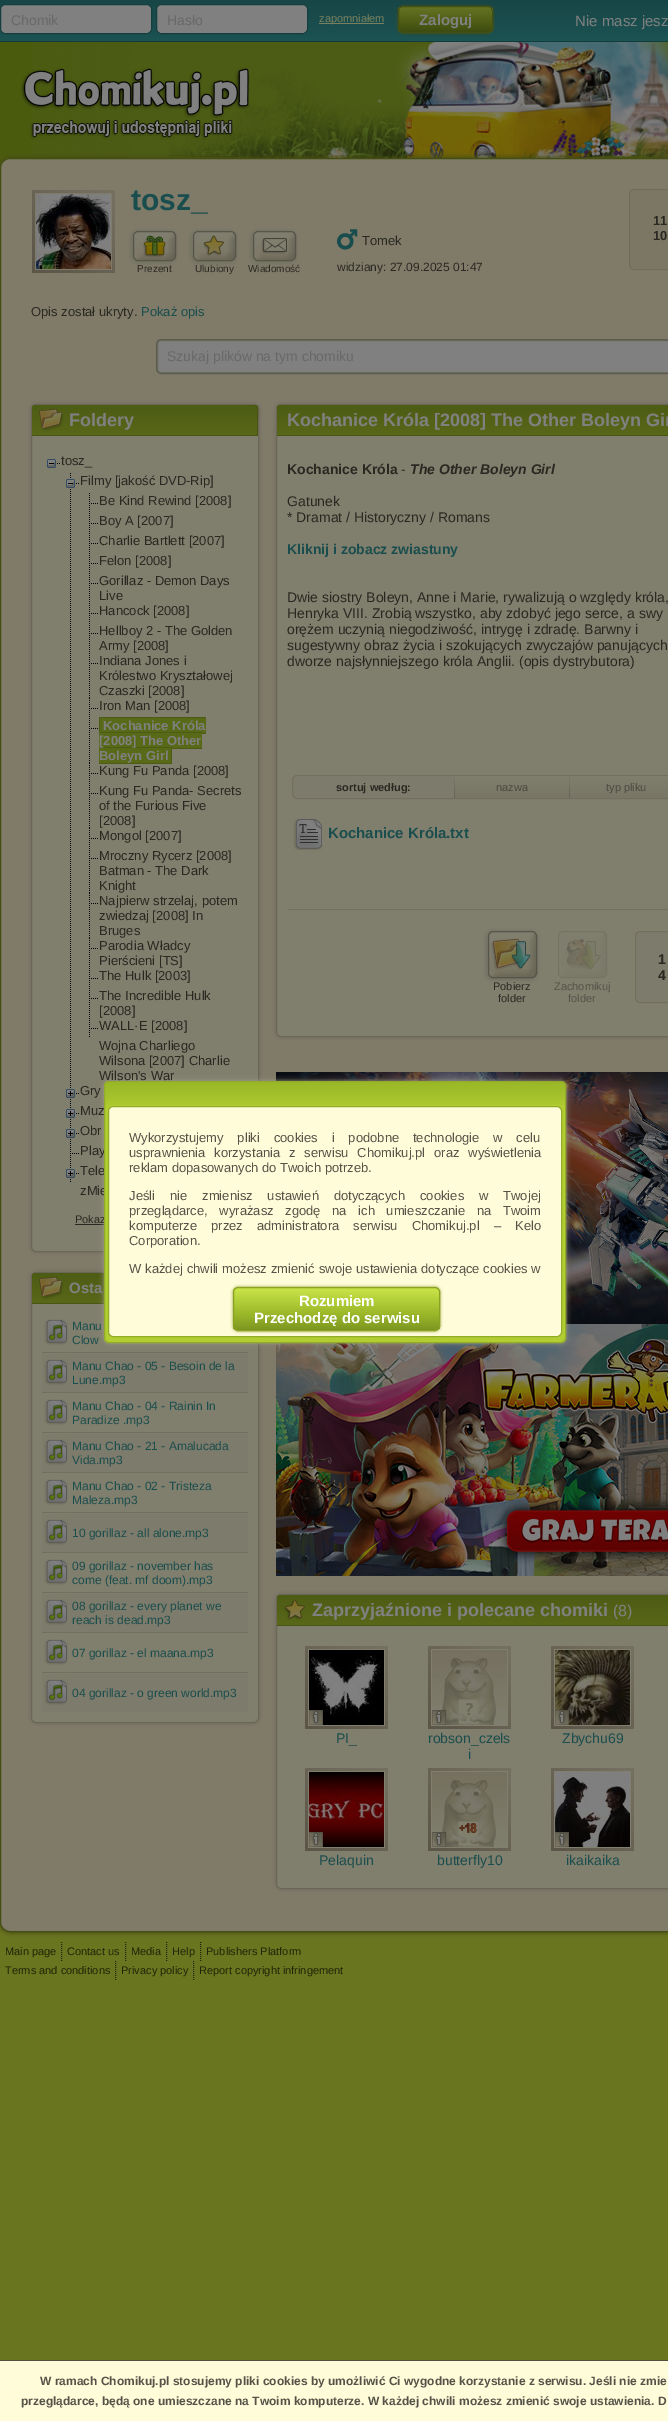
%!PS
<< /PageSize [668 2421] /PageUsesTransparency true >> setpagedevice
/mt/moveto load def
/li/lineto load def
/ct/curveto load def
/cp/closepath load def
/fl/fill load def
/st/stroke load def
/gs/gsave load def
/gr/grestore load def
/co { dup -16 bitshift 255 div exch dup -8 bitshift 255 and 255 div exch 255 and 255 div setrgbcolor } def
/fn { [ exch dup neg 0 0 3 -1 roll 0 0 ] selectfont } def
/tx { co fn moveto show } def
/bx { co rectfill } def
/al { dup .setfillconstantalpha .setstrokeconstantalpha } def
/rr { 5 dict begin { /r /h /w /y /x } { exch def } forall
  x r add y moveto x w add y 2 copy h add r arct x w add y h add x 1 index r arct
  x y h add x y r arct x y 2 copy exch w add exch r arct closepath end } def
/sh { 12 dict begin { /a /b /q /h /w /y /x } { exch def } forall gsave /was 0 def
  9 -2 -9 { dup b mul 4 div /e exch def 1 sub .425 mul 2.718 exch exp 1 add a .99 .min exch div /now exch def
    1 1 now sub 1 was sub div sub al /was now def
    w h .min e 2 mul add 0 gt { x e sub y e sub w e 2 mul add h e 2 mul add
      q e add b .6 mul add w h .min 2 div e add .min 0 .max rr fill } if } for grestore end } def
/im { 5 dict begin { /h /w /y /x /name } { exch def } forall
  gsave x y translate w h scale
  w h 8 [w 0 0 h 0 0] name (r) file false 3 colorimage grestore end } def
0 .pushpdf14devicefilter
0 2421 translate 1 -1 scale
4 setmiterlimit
0 0 668 2421 16#6A751F bx
gs 0 0 mt 668 0 li 668 41 li 0 41 li cp clip newpath
<< /ShadingType 2 /ColorSpace /DeviceRGB /Coords [334 0 334 41] /Extend [true true] /Function << /FunctionType 2 /Domain [0 1] /C0 [.094 .275 .275] /C1 [.11 .325 .325] /N 1 >> >> shfill gr
0 41 668 1 16#143B3B bx
16#808080 co
.5 4.5 151 29 4.5 rr gs fl gr
16#153E3E co
st
16#808080 co
156.5 4.5 151 29 4.5 rr gs fl gr
16#153E3E co
st
319 23 65 1 16#78805F bx
16#454D13 co
398 6 95 27 5 1.5 1 sh
gs
398 6 95 27 5 rr clip newpath
gs 398 7 mt 493 7 li 493 32 li 398 32 li cp clip newpath
<< /ShadingType 2 /ColorSpace /DeviceRGB /Coords [446 7 446 32] /Extend [true true] /Function << /FunctionType 3 /Domain [0 1] /Functions [<< /FunctionType 2 /Domain [0 1] /C0 [.388 .443 .137] /C1 [.388 .443 .137] /N 1 >> << /FunctionType 2 /Domain [0 1] /C0 [.388 .443 .137] /C1 [.306 .361 .082] /N 1 >> << /FunctionType 2 /Domain [0 1] /C0 [.306 .361 .082] /C1 [.271 .325 .071] /N 1 >> << /FunctionType 2 /Domain [0 1] /C0 [.271 .325 .071] /C1 [.247 .294 .063] /N 1 >>] /Bounds [.06 .61 .83] /Encode [0 1 0 1 0 1 0 1] >> >> shfill gr
gr
16#455112 co
398.5 6.5 94 26 4.5 rr st
(media/1.raw) 0 42 128 126 im
(media/2.raw) 32 42 636 116 im
(media/3.raw) 20 67 230 73 im
16#454D13 co
-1 157 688 1776 11 2.5 1 sh
16#807B69 co
.5 158.5 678 1773 9.5 rr gs fl gr
16#444D13 co
st
(media/5.raw) 36 194 75 75 im
(media/4.raw) 32 190 83 83 im
16#6C6A5C co
132 232 43 30 5 2.5 1 sh
16#7F7D6F co
133 231 43 30 5 rr fl
(media/6.raw) 134 233 41 27 im
16#565549 co
133.5 231.5 42 29 4.5 rr st
(media/7.raw) 142 235 24 22 im
16#6C6A5C co
192 232 43 30 5 2.5 1 sh
16#7F7D6F co
193 231 43 30 5 rr fl
(media/6.raw) 194 233 41 27 im
16#565549 co
193.5 231.5 42 29 4.5 rr st
(media/8.raw) 203 235 22 21 im
16#6C6A5C co
252 232 43 30 5 2.5 1 sh
16#7F7D6F co
253 231 43 30 5 rr fl
(media/9.raw) 254 233 41 27 im
16#565549 co
253.5 231.5 42 29 4.5 rr st
(media/10.raw) 261 238 26 16 im
(media/11.raw) 337 229 21 21 im
16#7C7765 co
629.5 189.5 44 80 4.5 rr gs fl gr
16#716D5D co
st
16#808080 co
156 339 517 35 5 rr fl
16#696C5A co
157.5 340.5 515 32 3.5 rr st
16#5C5B4F co
156.5 339.5 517 34 4.5 rr st
16#726E5E co
30 403 230 850 6 2.5 1 sh
16#807E6D co
31.5 404.5 227 847 4.5 rr gs fl gr
16#6B6758 co
st
gs
36 404 mt 253 404 li 256 404 258 406 258 409 ct 258 436 li 31 436 li 31 409 li 31 406 33 404 36 404 ct cp clip newpath
gs 36 405 mt 254 405 li 256 405 258 407 258 409 ct 258 435 li 32 435 li 32 409 li 32 407 34 405 36 405 ct cp clip newpath
<< /ShadingType 2 /ColorSpace /DeviceRGB /Coords [145 405 145 435] /Extend [true true] /Function << /FunctionType 2 /Domain [0 1] /C0 [.302 .361 .078] /C1 [.349 .404 .098] /N 1 >> >> shfill gr
gr
16#495613 co
258 436 mt 258 418 li 258 413 260 405 253 405 ct 255 405 257 407 257 409 ct 257 435 li 32 435 li 32 436 li cp fl
(media/12.raw) 39 409 25 23 im
(media/13.raw) 57 463 3 1 im
(media/14.raw) 47 459 9 9 im
(media/15.raw) 70 473 1 19 im
(media/13.raw) 76 483 3 1 im
(media/14.raw) 66 479 9 9 im
(media/16.raw) 70 493 1 589 im
(media/15.raw) 89 493 1 19 im
(media/17.raw) 91 503 7 1 im
(media/15.raw) 89 513 1 19 im
(media/17.raw) 91 523 7 1 im
(media/15.raw) 89 533 1 19 im
(media/17.raw) 91 543 7 1 im
(media/15.raw) 89 553 1 19 im
(media/17.raw) 91 563 7 1 im
(media/18.raw) 89 573 1 29 im
(media/17.raw) 91 583 7 1 im
(media/15.raw) 89 603 1 19 im
(media/17.raw) 91 613 7 1 im
(media/18.raw) 89 623 1 29 im
(media/17.raw) 91 633 7 1 im
(media/19.raw) 89 653 1 45 im
(media/17.raw) 91 663 7 1 im
(media/15.raw) 89 698 1 19 im
(media/17.raw) 91 708 7 1 im
(media/19.raw) 89 718 1 45 im
(media/17.raw) 91 728 7 1 im
100 718 106 15 16#586917 bx
99 717 107 1 16#4D5C14 bx
202 733 4 1 16#4D5C14 bx
99 717 1 17 16#4D5C14 bx
99 732 103 1 16#4D5C14 bx
99 733 103 15 16#586917 bx
172 748 30 1 16#4D5C14 bx
99 747 73 1 16#4D5C14 bx
99 748 72 15 16#586917 bx
171 747 1 17 16#4D5C14 bx
99 763 73 1 16#4D5C14 bx
(media/15.raw) 89 763 1 19 im
(media/17.raw) 91 773 7 1 im
(media/19.raw) 89 783 1 45 im
(media/17.raw) 91 793 7 1 im
(media/15.raw) 89 828 1 19 im
(media/17.raw) 91 838 7 1 im
(media/19.raw) 89 848 1 45 im
(media/17.raw) 91 858 7 1 im
(media/19.raw) 89 893 1 45 im
(media/17.raw) 91 903 7 1 im
(media/18.raw) 89 938 1 29 im
(media/17.raw) 91 948 7 1 im
(media/15.raw) 89 968 1 19 im
(media/17.raw) 91 978 7 1 im
(media/18.raw) 89 988 1 29 im
(media/17.raw) 91 998 7 1 im
(media/15.raw) 89 1018 1 19 im
(media/17.raw) 91 1028 7 1 im
(media/15.raw) 70 1083 1 19 im
(media/13.raw) 76 1093 3 1 im
(media/20.raw) 66 1089 9 9 im
(media/15.raw) 70 1103 1 19 im
(media/13.raw) 76 1113 3 1 im
(media/20.raw) 66 1109 9 9 im
(media/15.raw) 70 1123 1 19 im
(media/13.raw) 76 1133 3 1 im
(media/20.raw) 66 1129 9 9 im
(media/15.raw) 70 1143 1 19 im
(media/17.raw) 72 1153 7 1 im
(media/15.raw) 70 1163 1 19 im
(media/13.raw) 76 1173 3 1 im
(media/20.raw) 66 1169 9 9 im
75 1224 29 1 16#292821 bx
16#726E5E co
30 1271 230 453 6 2.5 1 sh
16#807E6D co
31.5 1272.5 227 450 4.5 rr gs fl gr
16#6B6758 co
st
gs 36 1273 mt 254 1273 li 256 1273 258 1275 258 1277 ct 258 1303 li 32 1303 li 32 1277 li 32 1275 34 1273 36 1273 ct cp clip newpath
<< /ShadingType 2 /ColorSpace /DeviceRGB /Coords [145 1273 145 1303] /Extend [true true] /Function << /FunctionType 2 /Domain [0 1] /C0 [.302 .361 .078] /C1 [.349 .404 .098] /N 1 >> >> shfill gr
16#495613 co
258 1304 mt 258 1286 li 258 1281 260 1273 253 1273 ct 255 1273 257 1275 257 1277 ct 257 1303 li 32 1303 li 32 1304 li cp fl
(media/12.raw) 39 1277 25 23 im
42 1352 206 1 16#736F5E bx
(media/21.raw) 44 1319 24 26 im
42 1354 206 38 16#7D7B6B bx
42 1392 206 1 16#736F5E bx
(media/22.raw) 44 1359 24 26 im
42 1432 206 1 16#736F5E bx
(media/21.raw) 44 1399 24 26 im
42 1434 206 38 16#7D7B6B bx
42 1472 206 1 16#736F5E bx
(media/22.raw) 44 1439 24 26 im
42 1512 206 1 16#736F5E bx
(media/21.raw) 44 1479 24 26 im
42 1514 206 38 16#7D7B6B bx
42 1552 206 1 16#736F5E bx
(media/22.raw) 44 1519 24 26 im
42 1592 206 1 16#736F5E bx
(media/21.raw) 44 1559 24 26 im
42 1594 206 38 16#7D7B6B bx
42 1632 206 1 16#736F5E bx
(media/22.raw) 44 1599 24 26 im
42 1672 206 1 16#736F5E bx
(media/21.raw) 44 1639 24 26 im
42 1674 206 38 16#7D7B6B bx
(media/22.raw) 44 1679 24 26 im
16#726E5E co
275 403 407 635 6 2.5 1 sh
16#807E6D co
276.5 404.5 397 632 4.5 rr gs fl gr
16#6B6758 co
st
gs 281 405 mt 668 405 li 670 405 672 407 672 409 ct 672 435 li 277 435 li 277 409 li 277 407 279 405 281 405 ct cp clip newpath
<< /ShadingType 2 /ColorSpace /DeviceRGB /Coords [603 405 603 435] /Extend [true true] /Function << /FunctionType 2 /Domain [0 1] /C0 [.302 .361 .078] /C1 [.349 .404 .098] /N 1 >> >> shfill gr
16#495613 co
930 436 mt 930 418 li 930 413 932 405 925 405 ct 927 405 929 407 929 409 ct 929 435 li 277 435 li 277 436 li cp fl
16#7D7B6B co
292.5 775.5 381 23 4.5 rr gs fl gr
16#736F5E co
st
gs 294 776 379 22 5 rr clip newpath
<< /ShadingType 2 /ColorSpace /DeviceRGB /Coords [604 776 604 798] /Extend [true true] /Function << /FunctionType 2 /Domain [0 1] /C0 [.502 .494 .427] /C1 [.471 .467 .404] /N 1 >> >> shfill gr
16#7D7B6B co
299 776 mt 454 776 li 454 798 li 299 798 li 296 798 294 796 294 793 ct 294 781 li 294 778 296 776 299 776 ct cp fl
(media/23.raw) 454 776 1 22 im
(media/23.raw) 569 776 1 22 im
288 909 380 1 16#736F5E bx
(media/24.raw) 293 819 29 31 im
16#7D7B6B co
635.5 931.5 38 71 4.5 rr gs fl gr
16#736F5E co
st
16#6C6A5C co
487 932 49 47 5 2.5 1 sh
(media/25.raw) 489 932 47 45 im
16#565549 co
488.5 931.5 48 46 4.5 rr st
(media/26.raw) 491 939 40 31 im
(media/27.raw) 561 933 45 44 im
16#757464 co
558.5 931.5 48 46 4.5 rr st
(media/28.raw) 565 939 36 31 im
(media/29.raw) 276 1072 392 252 im
(media/30.raw) 276 1324 392 252 im
16#726E5E co
275 1593 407 297 6 2.5 1 sh
16#807E6D co
276.5 1594.5 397 294 4.5 rr gs fl gr
16#6B6758 co
st
gs 281 1595 mt 668 1595 li 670 1595 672 1597 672 1599 ct 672 1625 li 277 1625 li 277 1599 li 277 1597 279 1595 281 1595 ct cp clip newpath
<< /ShadingType 2 /ColorSpace /DeviceRGB /Coords [603 1595 603 1625] /Extend [true true] /Function << /FunctionType 2 /Domain [0 1] /C0 [.302 .361 .078] /C1 [.349 .404 .098] /N 1 >> >> shfill gr
16#495613 co
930 1626 mt 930 1608 li 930 1603 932 1595 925 1595 ct 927 1595 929 1597 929 1599 ct 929 1625 li 277 1625 li 277 1626 li cp fl
(media/31.raw) 283 1599 22 21 im
(media/33.raw) 309 1650 75 75 im
(media/32.raw) 305 1646 83 83 im
(media/34.raw) 309 1710 14 15 im
(media/36.raw) 432 1650 75 75 im
(media/35.raw) 428 1646 83 83 im
(media/34.raw) 432 1710 14 15 im
(media/38.raw) 555 1650 75 75 im
(media/37.raw) 551 1646 83 83 im
(media/34.raw) 555 1710 14 15 im
(media/40.raw) 309 1772 75 75 im
(media/39.raw) 305 1768 83 83 im
(media/34.raw) 309 1832 14 15 im
(media/42.raw) 432 1772 75 75 im
(media/41.raw) 428 1768 83 83 im
(media/34.raw) 432 1832 14 15 im
(media/44.raw) 555 1772 75 75 im
(media/43.raw) 551 1768 83 83 im
(media/34.raw) 555 1832 14 15 im
16#1F2507 co
[1 1] 0 setdash
61.5 1942 mt 61.5 1961 li st
125.5 1942 mt 125.5 1961 li st
166.5 1942 mt 166.5 1961 li st
200.5 1942 mt 200.5 1961 li st
115.5 1961 mt 115.5 1980 li st
193.5 1961 mt 193.5 1980 li st
16#A39D85 co
104 1081 462 262 5 2.5 1 sh
0 2361 668 60 16#FFFCDA bx
0 2360 668 1 16#524F42 bx
(Chomik) 11 25 /LiberationSans-Regular 14 16#686868 tx
(Hasło) 167 25 /LiberationSans-Regular 14 16#686868 tx
(zapomniałem) 319 22 /LiberationSans-Regular 11 16#78805F tx
(Zaloguj) 419 25 /LiberationSans-Bold 15 16#808080 tx
(Nie masz jesz) 575 26 /LiberationSans-Regular 15 16#808080 tx
(tosz_) 131 210 /LiberationSans-Bold 30 16#1A4D4D tx
(Prezent) 137 272 /LiberationSans-Regular 10 16#292821 tx
(Ulubiony) 195 272 /LiberationSans-Regular 10 16#292821 tx
(Wiadomość) 248 272 /LiberationSans-Regular 10 16#292821 tx
(Tomek) 362 245 /LiberationSans-Regular 13 16#292821 tx
(widziany: 27.09.2025 01:47) 337 271 /LiberationSans-Regular 12 16#292821 tx
(11) 653 225 /LiberationSans-Bold 13 16#292821 tx
(10) 653 240 /LiberationSans-Bold 13 16#292821 tx
(Opis został ukryty.) 31 316 /LiberationSans-Regular 13 16#292821 tx
(Pokaż opis) 141 316 /LiberationSans-Regular 13 16#1A4D4D tx
(Szukaj plików na tym chomiku) 167 361 /LiberationSans-Regular 14 16#686868 tx
(Foldery) 69 426 /LiberationSans-Bold 18 16#808080 tx
(tosz_) 61 465 /LiberationSans-Regular 13 16#292821 tx
(Filmy [jakość DVD-Rip]) 80 485 /LiberationSans-Regular 13 16#292821 tx
(Be Kind Rewind [2008]) 99 505 /LiberationSans-Regular 13 16#292821 tx
(Boy A [2007]) 99 525 /LiberationSans-Regular 13 16#292821 tx
(Charlie Bartlett [2007]) 99 545 /LiberationSans-Regular 13 16#292821 tx
(Felon [2008]) 99 565 /LiberationSans-Regular 13 16#292821 tx
(Gorillaz - Demon Days) 99 585 /LiberationSans-Regular 13 16#292821 tx
(Live) 99 600 /LiberationSans-Regular 13 16#292821 tx
(Hancock [2008]) 99 615 /LiberationSans-Regular 13 16#292821 tx
(Hellboy 2 - The Golden) 99 635 /LiberationSans-Regular 13 16#292821 tx
(Army [2008]) 99 650 /LiberationSans-Regular 13 16#292821 tx
(Indiana Jones i) 99 665 /LiberationSans-Regular 13 16#292821 tx
(Królestwo Kryształowej) 99 680 /LiberationSans-Regular 13 16#292821 tx
(Czaszki [2008]) 99 695 /LiberationSans-Regular 13 16#292821 tx
(Iron Man [2008]) 99 710 /LiberationSans-Regular 13 16#292821 tx
(Kochanice Króla) 103 730 /LiberationSans-Bold 13 16#808080 tx
([2008] The Other) 99 745 /LiberationSans-Bold 13 16#808080 tx
(Boleyn Girl) 99 760 /LiberationSans-Bold 13 16#808080 tx
(Kung Fu Panda [2008]) 99 775 /LiberationSans-Regular 13 16#292821 tx
(Kung Fu Panda- Secrets) 99 795 /LiberationSans-Regular 13 16#292821 tx
(of the Furious Five) 99 810 /LiberationSans-Regular 13 16#292821 tx
([2008]) 99 825 /LiberationSans-Regular 13 16#292821 tx
(Mongol [2007]) 99 840 /LiberationSans-Regular 13 16#292821 tx
(Mroczny Rycerz [2008]) 99 860 /LiberationSans-Regular 13 16#292821 tx
(Batman - The Dark) 99 875 /LiberationSans-Regular 13 16#292821 tx
(Knight) 99 890 /LiberationSans-Regular 13 16#292821 tx
(Najpierw strzelaj, potem) 99 905 /LiberationSans-Regular 13 16#292821 tx
(zwiedzaj [2008] In) 99 920 /LiberationSans-Regular 13 16#292821 tx
(Bruges) 99 935 /LiberationSans-Regular 13 16#292821 tx
(Parodia Władcy) 99 950 /LiberationSans-Regular 13 16#292821 tx
(Pierścieni [TS]) 99 965 /LiberationSans-Regular 13 16#292821 tx
(The Hulk [2003]) 99 980 /LiberationSans-Regular 13 16#292821 tx
(The Incredible Hulk) 99 1000 /LiberationSans-Regular 13 16#292821 tx
([2008]) 99 1015 /LiberationSans-Regular 13 16#292821 tx
(WALL·E [2008]) 99 1030 /LiberationSans-Regular 13 16#292821 tx
(Wojna Charliego) 99 1050 /LiberationSans-Regular 13 16#292821 tx
(Wilsona [2007] Charlie) 99 1065 /LiberationSans-Regular 13 16#292821 tx
(Wilson's War) 99 1080 /LiberationSans-Regular 13 16#292821 tx
(Gry) 80 1095 /LiberationSans-Regular 13 16#292821 tx
(Muz) 80 1115 /LiberationSans-Regular 13 16#292821 tx
(Obr) 80 1135 /LiberationSans-Regular 13 16#292821 tx
(Play) 80 1155 /LiberationSans-Regular 13 16#292821 tx
(Tele) 80 1175 /LiberationSans-Regular 13 16#292821 tx
(zMie) 80 1195 /LiberationSans-Regular 13 16#292821 tx
(Pokaz) 75 1223 /LiberationSans-Regular 11 16#292821 tx
(Osta) 69 1293 /LiberationSans-Bold 15 16#808080 tx
(Manu) 72 1330 /LiberationSans-Regular 12 16#1A4D4D tx
(Clow) 72 1344 /LiberationSans-Regular 12 16#1A4D4D tx
(Manu Chao - 05 - Besoin de la) 72 1370 /LiberationSans-Regular 12 16#1A4D4D tx
(Lune.mp3) 72 1384 /LiberationSans-Regular 12 16#1A4D4D tx
(Manu Chao - 04 - Rainin In) 72 1410 /LiberationSans-Regular 12 16#1A4D4D tx
(Paradize .mp3) 72 1424 /LiberationSans-Regular 12 16#1A4D4D tx
(Manu Chao - 21 - Amalucada) 72 1450 /LiberationSans-Regular 12 16#1A4D4D tx
(Vida.mp3) 72 1464 /LiberationSans-Regular 12 16#1A4D4D tx
(Manu Chao - 02 - Tristeza) 72 1490 /LiberationSans-Regular 12 16#1A4D4D tx
(Maleza.mp3) 72 1504 /LiberationSans-Regular 12 16#1A4D4D tx
(10 gorillaz - all alone.mp3) 72 1537 /LiberationSans-Regular 12 16#1A4D4D tx
(09 gorillaz - november has) 72 1570 /LiberationSans-Regular 12 16#1A4D4D tx
(come \(feat. mf doom\).mp3) 72 1584 /LiberationSans-Regular 12 16#1A4D4D tx
(08 gorillaz - every planet we) 72 1610 /LiberationSans-Regular 12 16#1A4D4D tx
(reach is dead.mp3) 72 1624 /LiberationSans-Regular 12 16#1A4D4D tx
(07 gorillaz - el maana.mp3) 72 1657 /LiberationSans-Regular 12 16#1A4D4D tx
(04 gorillaz - o green world.mp3) 72 1697 /LiberationSans-Regular 12 16#1A4D4D tx
(Kochanice Króla [2008] The Other Boleyn Gir) 287 426 /LiberationSans-Bold 18 16#808080 tx
(Kochanice Króla) 287 474 /LiberationSans-Bold 14 16#292821 tx
(-) 401 474 /LiberationSans-Regular 14 16#292821 tx
(The Other Boleyn Girl) 410 474 /LiberationSans-BoldItalic 14 16#292821 tx
(Gatunek) 287 506 /LiberationSans-Regular 14 16#292821 tx
(* Dramat / Historyczny / Romans) 287 522 /LiberationSans-Regular 14 16#292821 tx
(Kliknij i zobacz zwiastuny) 287 554 /LiberationSans-Bold 14 16#1A4D4D tx
(Dwie siostry Boleyn, Anne i Marie, rywalizują o względy króla,) 287 602 /LiberationSans-Regular 14 16#292821 tx
(Henryka VIII. Zrobią wszystko, aby zdobyć jego serce, a swy) 287 618 /LiberationSans-Regular 14 16#292821 tx
(orężem uczynią niegodziwość, intrygę i zdradę. Barwny i) 287 634 /LiberationSans-Regular 14 16#292821 tx
(sugestywny obraz życia i szokujących zwyczajów panujących) 287 650 /LiberationSans-Regular 14 16#292821 tx
(dworze najsłynniejszego króla Anglii. \(opis dystrybutora\)) 287 666 /LiberationSans-Regular 14 16#292821 tx
(sortuj według:) 336 791 /LiberationSans-Bold 11 16#292821 tx
(nazwa) 496 791 /LiberationSans-Regular 11 16#4A493F tx
(typ pliku) 606 791 /LiberationSans-Regular 11 16#4A493F tx
(Kochanice Króla.txt) 328 838 /LiberationSans-Bold 15 16#1A4D4D tx
(1) 658 964 /LiberationSans-Bold 14 16#292821 tx
(4) 658 980 /LiberationSans-Bold 14 16#292821 tx
(Pobierz) 493 990 /LiberationSans-Regular 11 16#292821 tx
(folder) 498 1002 /LiberationSans-Regular 11 16#292821 tx
(Zachomikuj) 554 990 /LiberationSans-Regular 11 16#555347 tx
(folder) 568 1002 /LiberationSans-Regular 11 16#555347 tx
(Zaprzyjaźnione i polecane chomiki) 312 1616 /LiberationSans-Bold 18 16#808080 tx
(\(8\)) 613 1616 /LiberationSans-Regular 16 16#808080 tx
(PI_) 336 1743 /LiberationSans-Regular 14 16#1A4D4D tx
(robson_czels) 428 1743 /LiberationSans-Regular 14 16#1A4D4D tx
(i) 468 1759 /LiberationSans-Regular 14 16#1A4D4D tx
(Zbychu69) 562 1743 /LiberationSans-Regular 14 16#1A4D4D tx
(Pelaquin) 319 1865 /LiberationSans-Regular 14 16#1A4D4D tx
(butterfly10) 437 1865 /LiberationSans-Regular 14 16#1A4D4D tx
(ikaikaika) 566 1865 /LiberationSans-Regular 14 16#1A4D4D tx
(Main page) 5 1955 /LiberationSans-Regular 11 16#1F2507 tx
(Contact us) 67 1955 /LiberationSans-Regular 11 16#1F2507 tx
(Media) 131 1955 /LiberationSans-Regular 11 16#1F2507 tx
(Help) 172 1955 /LiberationSans-Regular 11 16#1F2507 tx
(Publishers Platform) 206 1955 /LiberationSans-Regular 11 16#1F2507 tx
(Terms and conditions) 5 1974 /LiberationSans-Regular 11 16#1F2507 tx
(Privacy policy) 121 1974 /LiberationSans-Regular 11 16#1F2507 tx
(Report copyright infringement) 199 1974 /LiberationSans-Regular 11 16#1F2507 tx
16#B2CD31 co
104 1081 462 262 5 rr fl
(media/45.raw) 104 1082 462 23 im
16#91AC26 co
[] 0 setdash
104.5 1081.5 461 261 4.5 rr st
16#FFFCDA co
108.5 1106.5 453 230 4.5 rr gs fl gr
16#91AC26 co
st
/LiberationSans-Regular 13 fn
16#555347 co
129 1142 mt 10.25 0 32 (Wykorzystujemy pliki cookies i podobne technologie w celu) widthshow
129 1157 mt 5.25 0 32 (usprawnienia korzystania z serwisu Chomikuj.pl oraz wyświetlenia) widthshow
(reklam dopasowanych do Twoich potrzeb.) 129 1172 /LiberationSans-Regular 13 16#555347 tx
129 1200 mt 11.25 0 32 (Jeśli nie zmienisz ustawień dotyczących cookies w Twojej) widthshow
129 1215 mt 8 0 32 (przeglądarce, wyrażasz zgodę na ich umieszczanie na Twoim) widthshow
129 1230 mt 10.5 0 32 (komputerze przez administratora serwisu Chomikuj.pl – Kelo) widthshow
(Corporation.) 129 1245 /LiberationSans-Regular 13 16#555347 tx
129 1273 mt .25 0 32 (W każdej chwili możesz zmienić swoje ustawienia dotyczące cookies w) widthshow
16#899926 co
233 1287 207 44 5 1.5 1 sh
gs
233 1287 207 44 5 rr clip newpath
gs 233 1288 mt 440 1288 li 440 1330 li 233 1330 li cp clip newpath
<< /ShadingType 2 /ColorSpace /DeviceRGB /Coords [337 1288 337 1330] /Extend [true true] /Function << /FunctionType 3 /Domain [0 1] /Functions [<< /FunctionType 2 /Domain [0 1] /C0 [.776 .882 .275] /C1 [.776 .882 .275] /N 1 >> << /FunctionType 2 /Domain [0 1] /C0 [.776 .882 .275] /C1 [.612 .722 .161] /N 1 >> << /FunctionType 2 /Domain [0 1] /C0 [.612 .722 .161] /C1 [.541 .647 .141] /N 1 >> << /FunctionType 2 /Domain [0 1] /C0 [.541 .647 .141] /C1 [.49 .584 .125] /N 1 >>] /Bounds [.06 .61 .83] /Encode [0 1 0 1 0 1 0 1] >> >> shfill gr
gr
16#89A224 co
233.5 1287.5 206 43 4.5 rr st
(Rozumiem) 299 1306 /LiberationSans-Bold 15 16#FFFFFF tx
(Przechodzę do serwisu) 254 1323 /LiberationSans-Bold 15 16#FFFFFF tx
(W ramach Chomikuj.pl stosujemy pliki cookies by umożliwić Ci wygodne korzystanie z serwisu. Jeśli nie zmie) 40 2385 /LiberationSans-Bold 12 16#555347 tx
(przeglądarce, będą one umieszczane na Twoim komputerze. W każdej chwili możesz zmienić swoje ustawienia. D) 21 2405 /LiberationSans-Bold 12 16#555347 tx
.poppdf14devicefilter showpage
